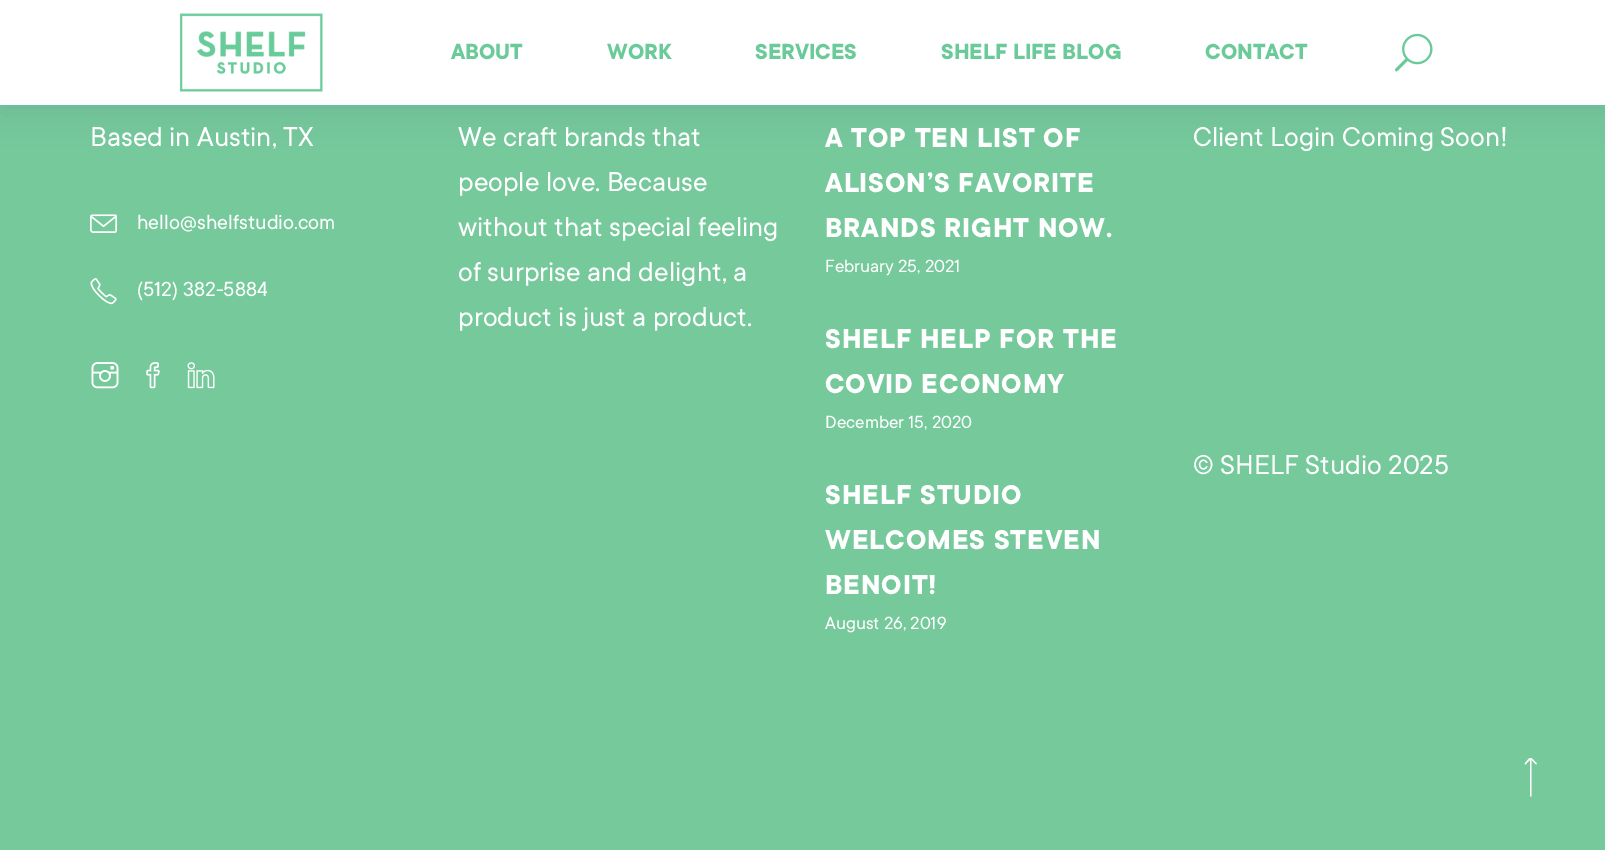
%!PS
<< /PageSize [1605 850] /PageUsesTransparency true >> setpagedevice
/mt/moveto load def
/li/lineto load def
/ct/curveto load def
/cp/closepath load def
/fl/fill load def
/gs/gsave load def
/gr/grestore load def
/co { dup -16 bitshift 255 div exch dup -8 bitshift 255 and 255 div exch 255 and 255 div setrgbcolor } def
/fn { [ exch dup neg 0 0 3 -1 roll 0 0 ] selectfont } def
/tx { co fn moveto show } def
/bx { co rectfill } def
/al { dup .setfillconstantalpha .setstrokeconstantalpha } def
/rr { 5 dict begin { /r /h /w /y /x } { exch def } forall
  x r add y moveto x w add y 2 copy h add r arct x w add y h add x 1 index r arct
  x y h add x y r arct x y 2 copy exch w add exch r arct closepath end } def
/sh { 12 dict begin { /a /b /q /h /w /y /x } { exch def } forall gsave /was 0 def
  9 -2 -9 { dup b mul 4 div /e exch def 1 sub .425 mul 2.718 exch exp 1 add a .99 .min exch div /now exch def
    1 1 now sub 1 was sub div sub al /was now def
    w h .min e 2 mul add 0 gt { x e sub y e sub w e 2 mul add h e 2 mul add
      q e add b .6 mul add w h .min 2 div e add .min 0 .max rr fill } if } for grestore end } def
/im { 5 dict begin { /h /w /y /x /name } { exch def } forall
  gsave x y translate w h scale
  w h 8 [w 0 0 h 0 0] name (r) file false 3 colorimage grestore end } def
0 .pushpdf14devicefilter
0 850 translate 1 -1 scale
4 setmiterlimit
0 0 1605 850 16#75C99B bx
16#172C52 co
0 8 1605 105 0 15 .1 sh
0 0 1605 105 16#FFFFFF bx
(media/1.raw) 180 13 143 79 im
(media/2.raw) 1394 33 39 39 im
(media/3.raw) 90 214 27 19 im
(media/4.raw) 90 278 27 27 im
(media/5.raw) 91 362 28 27 im
(media/6.raw) 146 362 14 27 im
(media/7.raw) 187 362 28 27 im
gs
1524 758 14 39 rectclip
1531 757.5 mt 1530 757.5 li 1529 759 1522.5 764.5 1525.5 764.5 ct 1530 760 li 1530 796 li 1530.5 796.5 li 1531.5 796.5 li 1531.5 760 li 1536 764.5 li 1536.5 764.5 1537 763.5 1536.5 763 ct cp fl
gr
(ABOUT) 451 59 /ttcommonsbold-Regular 24 16#6BCA9A tx
(WORK) 607 59 /ttcommonsbold-Regular 24 16#6BCA9A tx
(SERVICES) 755 59 /ttcommonsbold-Regular 24 16#6BCA9A tx
(SHELF LIFE BLOG) 941 59 /ttcommonsbold-Regular 24 16#6BCA9A tx
(CONTACT) 1205 59 /ttcommonsbold-Regular 24 16#6BCA9A tx
(Based in Austin, TX) 90 146 /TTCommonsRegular-Regular 30 16#FFFFFF tx
(hello@shelfstudio.com) 137 229 /TTCommonsRegular-Regular 22.5 16#FFFFFF tx
(\(512\) 382-5884) 137 296 /TTCommonsRegular-Regular 22.5 16#FFFFFF tx
(We craft brands that) 458 146 /TTCommonsRegular-Regular 30 16#FFFFFF tx
(people love. Because) 458 191 /TTCommonsRegular-Regular 30 16#FFFFFF tx
(without that special feeling) 458 236 /TTCommonsRegular-Regular 30 16#FFFFFF tx
(of surprise and delight, a) 458 281 /TTCommonsRegular-Regular 30 16#FFFFFF tx
(product is just a product.) 458 326 /TTCommonsRegular-Regular 30 16#FFFFFF tx
/ttcommonsbold-Regular 30 fn
825 147 mt .9 0 (A TOP TEN LIST OF) ashow
825 192 mt .9 0 (ALISON’S FAVORITE) ashow
825 237 mt .9 0 (BRANDS RIGHT NOW.) ashow
(February 25, 2021) 825 272 /TTCommonsRegular-Regular 19.5 16#FFFFFF tx
/ttcommonsbold-Regular 30 fn
825 348 mt .9 0 (SHELF HELP FOR THE) ashow
825 393 mt .9 0 (COVID ECONOMY) ashow
(December 15, 2020) 825 428 /TTCommonsRegular-Regular 19.5 16#FFFFFF tx
/ttcommonsbold-Regular 30 fn
825 504 mt .9 0 (SHELF STUDIO) ashow
825 549 mt .9 0 (WELCOMES STEVEN) ashow
825 594 mt .9 0 (BENOIT!) ashow
(August 26, 2019) 825 629 /TTCommonsRegular-Regular 19.5 16#FFFFFF tx
(Client Login Coming Soon!) 1193 146 /TTCommonsRegular-Regular 30 16#FFFFFF tx
(© SHELF Studio 2025) 1193 474 /TTCommonsRegular-Regular 30 16#FFFFFF tx
.poppdf14devicefilter showpage
